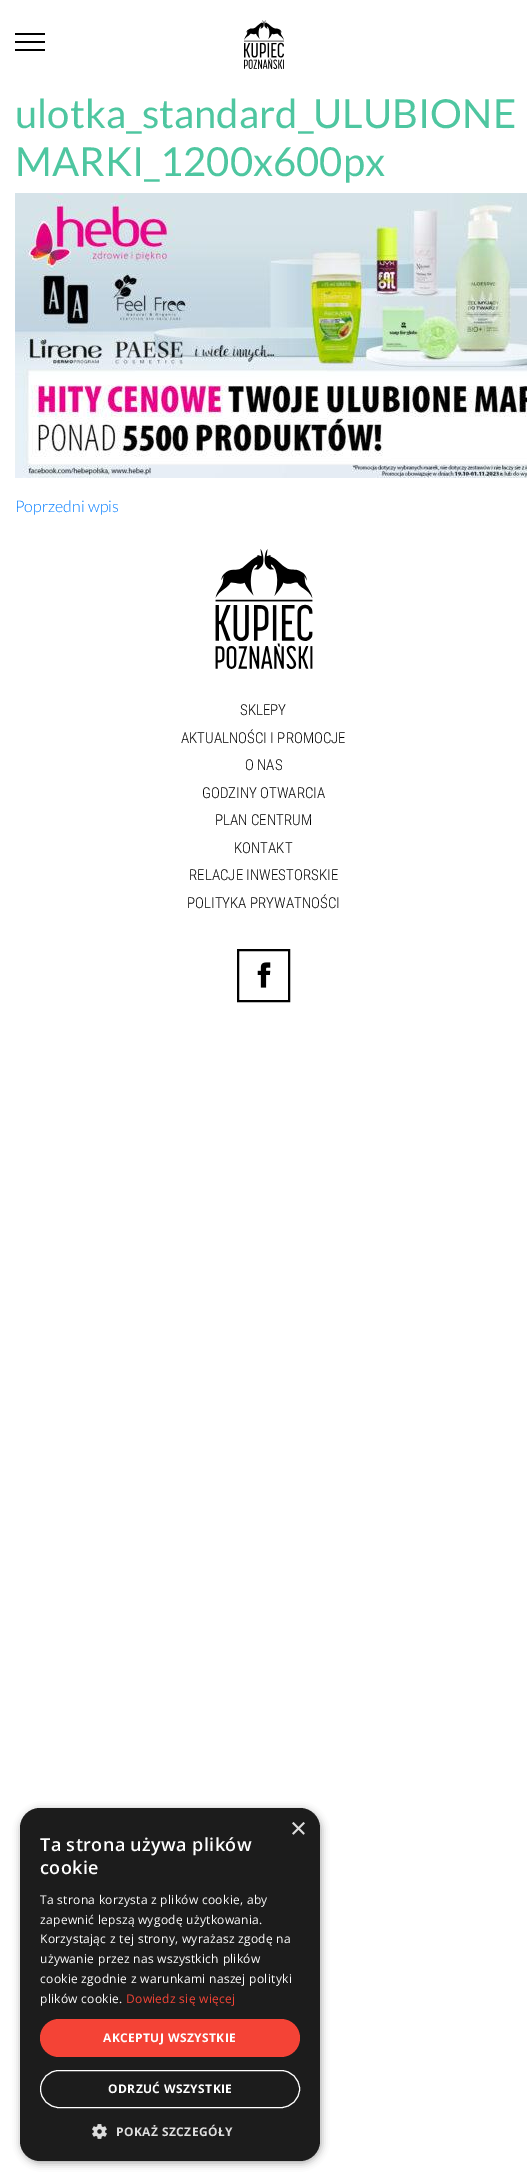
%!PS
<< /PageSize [527 2181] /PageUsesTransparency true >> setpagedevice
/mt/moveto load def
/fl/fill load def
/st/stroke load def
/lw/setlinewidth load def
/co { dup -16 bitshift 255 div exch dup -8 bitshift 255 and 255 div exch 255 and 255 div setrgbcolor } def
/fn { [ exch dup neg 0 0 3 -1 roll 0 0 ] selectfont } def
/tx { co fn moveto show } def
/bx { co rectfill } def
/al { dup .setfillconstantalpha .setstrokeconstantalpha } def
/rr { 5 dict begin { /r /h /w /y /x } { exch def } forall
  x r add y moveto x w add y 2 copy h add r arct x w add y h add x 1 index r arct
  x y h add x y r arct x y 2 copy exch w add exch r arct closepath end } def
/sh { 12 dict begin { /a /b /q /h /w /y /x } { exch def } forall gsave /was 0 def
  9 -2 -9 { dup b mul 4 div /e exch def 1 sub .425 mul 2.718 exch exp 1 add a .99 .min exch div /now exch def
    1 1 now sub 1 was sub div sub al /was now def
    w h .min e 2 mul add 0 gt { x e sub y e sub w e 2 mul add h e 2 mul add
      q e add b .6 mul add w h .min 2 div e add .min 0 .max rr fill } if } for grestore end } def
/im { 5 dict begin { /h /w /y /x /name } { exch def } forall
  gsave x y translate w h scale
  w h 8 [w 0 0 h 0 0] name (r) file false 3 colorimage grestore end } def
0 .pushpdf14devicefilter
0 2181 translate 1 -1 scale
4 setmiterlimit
0 0 527 2181 16#FFFFFF bx
15 33 30 2 16#000000 bx
15 41 30 2 16#000000 bx
15 49 30 2 16#000000 bx
(media/1.raw) 244 20 40 49 im
(media/2.raw) 15 193 512 285 im
(media/3.raw) 215 549 98 120 im
2 lw
238 950 51 51 rectstroke
(media/4.raw) 257 962 14 26 im
21 1810 300 353 20 4 .35 sh
16#1C1C1C co
20 1808 300 353 20 rr fl
16#F44336 co
40 2019 260 38 19 rr fl
16#FFFFFF co
1 lw
40.5 2070.5 259 37 18.5 rr st
(media/5.raw) 92 2124 15 15 im
(ulotka_standard_ULUBIONE) 15 128 /Lato-Regular 40 16#4EC6A0 tx
(MARKI_1200x600px) 15 176 /Lato-Regular 40 16#4EC6A0 tx
(Poprzedni wpis) 15 512 /Lato-Light 16 16#007BFF tx
(SKLEPY) 240 715 /RobotoCondensed-Light 15 16#000000 tx
(AKTUALNOŚCI I PROMOCJE) 181 743 /RobotoCondensed-Light 15 16#000000 tx
(O NAS) 245 770 /RobotoCondensed-Light 15 16#000000 tx
(GODZINY OTWARCIA) 202 798 /RobotoCondensed-Light 15 16#000000 tx
(PLAN CENTRUM) 215 825 /RobotoCondensed-Light 15 16#000000 tx
(KONTAKT) 234 853 /RobotoCondensed-Light 15 16#000000 tx
(RELACJE INWESTORSKIE) 189 880 /RobotoCondensed-Light 15 16#000000 tx
(POLITYKA PRYWATNOŚCI) 187 908 /RobotoCondensed-Light 15 16#000000 tx
(×) 290 1838 /LiberationSans-Regular 29 16#DDDDDD tx
/OpenSans-SemiBold 18 fn
16#FFFFFF co
40 1851 mt .4 0 (Ta strona używa plików) ashow
40 1874 mt .4 0 (cookie) ashow
/OpenSans-Regular 12 fn
40 1904 mt .3 0 (Ta strona korzysta z plików cookie, aby) ashow
40 1924 mt .3 0 (zapewnić lepszą wygodę użytkowania.) ashow
40 1943 mt .3 0 (Korzystając z tej strony, wyrażasz zgodę na) ashow
40 1963 mt .3 0 (używanie przez nas wszystkich plików) ashow
40 1983 mt .3 0 (cookie zgodnie z warunkami naszej polityki) ashow
40 2003 mt .3 0 (plików cookie.) ashow
16#F44336 co
126 2003 mt .3 0 (Dowiedz się więcej) ashow
/OpenSans-Bold 12 fn
16#FFFFFF co
103 2042 mt .4 0 (AKCEPTUJ WSZYSTKIE) ashow
108 2093 mt .4 0 (ODRZUĆ WSZYSTKIE) ashow
16#DDDDDD co
116 2136 mt .4 0 (POKAŻ SZCZEGÓŁY) ashow
.poppdf14devicefilter showpage
